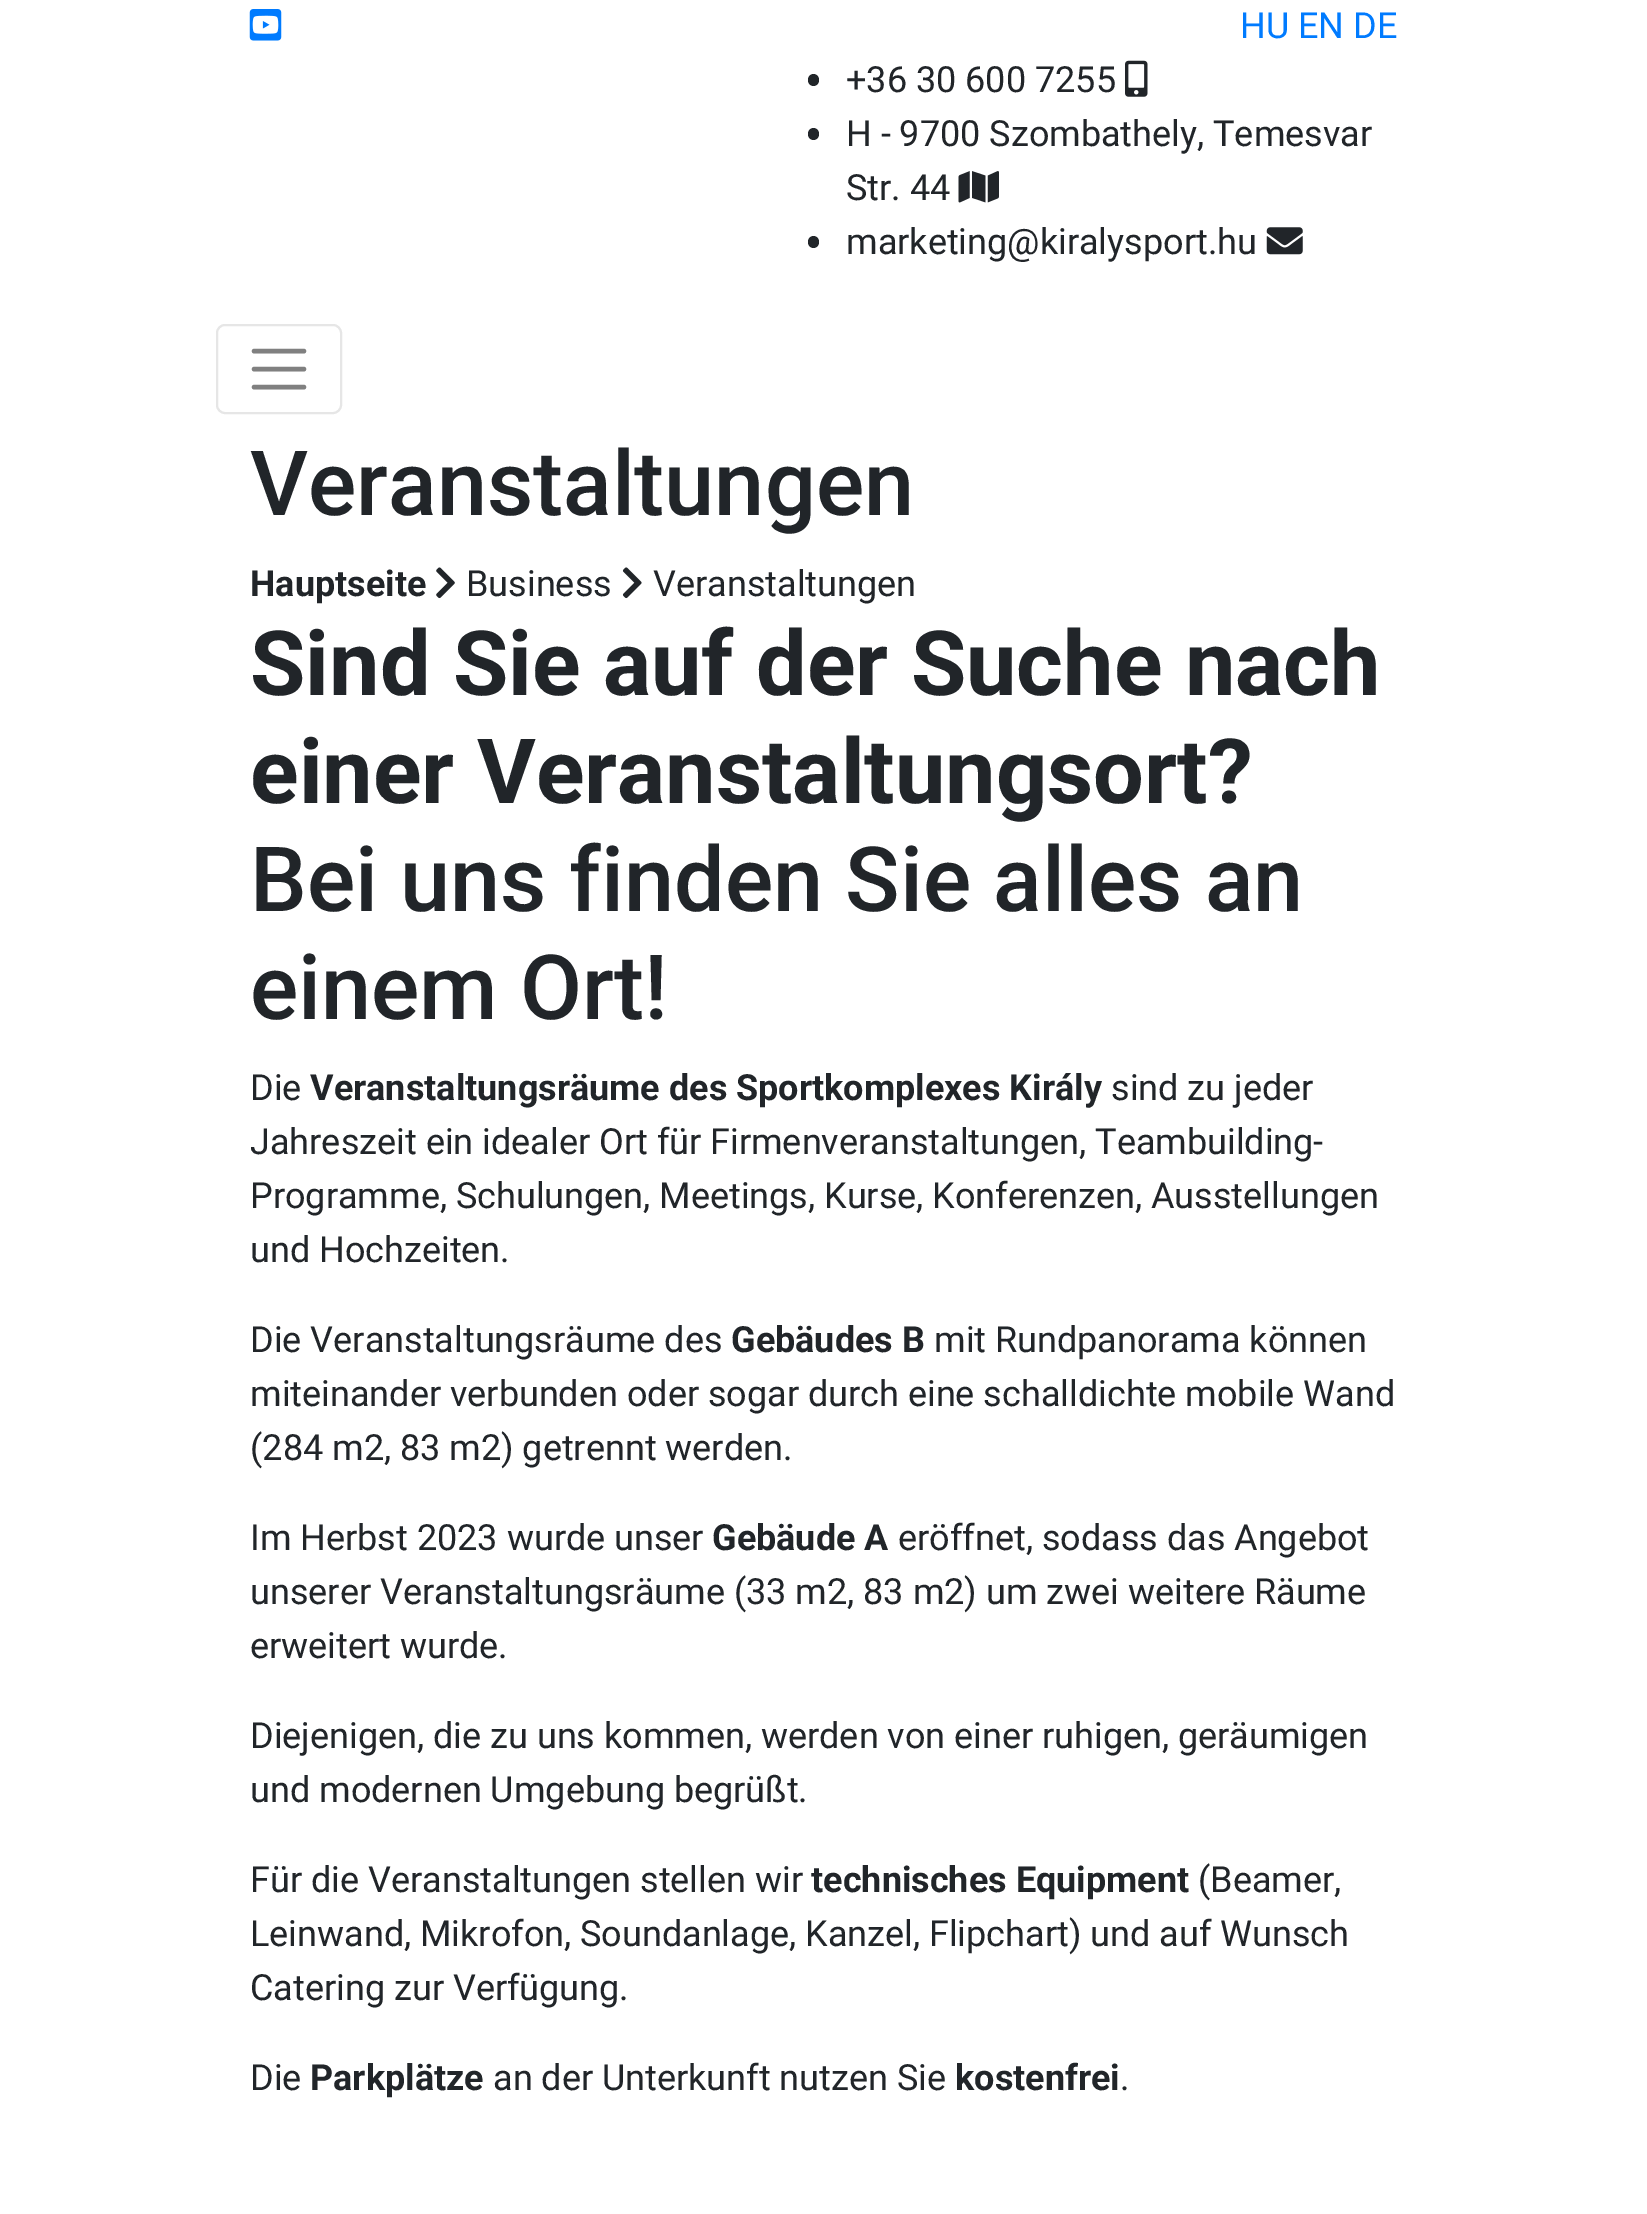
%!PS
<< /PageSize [1647 2214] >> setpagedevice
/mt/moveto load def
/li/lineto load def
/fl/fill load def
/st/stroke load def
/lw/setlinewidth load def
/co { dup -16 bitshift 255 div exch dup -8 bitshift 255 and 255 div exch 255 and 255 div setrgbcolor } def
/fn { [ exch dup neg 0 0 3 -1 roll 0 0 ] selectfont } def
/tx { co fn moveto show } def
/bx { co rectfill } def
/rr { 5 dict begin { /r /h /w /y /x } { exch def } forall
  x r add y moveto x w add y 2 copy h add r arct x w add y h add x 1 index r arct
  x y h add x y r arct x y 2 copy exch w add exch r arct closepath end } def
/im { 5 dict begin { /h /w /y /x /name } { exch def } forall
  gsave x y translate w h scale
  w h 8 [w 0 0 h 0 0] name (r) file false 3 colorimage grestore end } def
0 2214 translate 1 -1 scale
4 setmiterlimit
0 0 1647 2214 16#FFFFFF bx
(media/1.raw) 249 9 33 32 im
16#212529 co
808 74 11 12 5.5 rr fl
(media/2.raw) 1125 60 23 37 im
808 128 11 12 5.5 rr fl
(media/3.raw) 958 171 41 32 im
808 236 11 12 5.5 rr fl
(media/4.raw) 1266 227 37 28 im
16#E6E6E6 co
2 lw
217 325 124 88 8 rr st
16#808080 co
4.5 lw
1 setlinecap
254 351 mt 304 351 li 254 369 mt 304 369 li 254 387 mt 304 387 li st
(media/5.raw) 436 567 19 32 im
(media/6.raw) 622 567 20 32 im
(HU EN DE) 1240 38 /Roboto-Regular 36 16#007BFF tx
(+36 30 600 7255) 846 92 /Roboto-Regular 36 16#212529 tx
(H - 9700 Szombathely, Temesvar) 846 146 /Roboto-Regular 36 16#212529 tx
(Str. 44) 846 200 /Roboto-Regular 36 16#212529 tx
(marketing@kiralysport.hu) 846 254 /Roboto-Regular 36 16#212529 tx
(Veranstaltungen) 250 515 /Roboto-Medium 90 16#212529 tx
(Hauptseite) 250 596 /Roboto-Bold 36 16#212529 tx
(Business) 466 596 /Roboto-Regular 36 16#212529 tx
(Veranstaltungen) 653 596 /Roboto-Regular 36 16#212529 tx
(Sind Sie auf der Suche nach) 250 695 /Roboto-Bold 90 16#212529 tx
(einer Veranstaltungsort?) 250 803 /Roboto-Bold 90 16#212529 tx
(Bei uns finden Sie alles an) 250 911 /Roboto-Medium 90 16#212529 tx
(einem Ort!) 250 1019 /Roboto-Medium 90 16#212529 tx
(Die) 250 1100 /Roboto-Regular 36 16#212529 tx
(Veranstaltungsräume des Sportkomplexes Király) 310 1100 /Roboto-Bold 36 16#212529 tx
(sind zu jeder) 1111 1100 /Roboto-Regular 36 16#212529 tx
(Jahreszeit ein idealer Ort für Firmenveranstaltungen, Teambuilding-) 250 1154 /Roboto-Regular 36 16#212529 tx
(Programme, Schulungen, Meetings, Kurse, Konferenzen, Ausstellungen) 250 1208 /Roboto-Regular 36 16#212529 tx
(und Hochzeiten.) 250 1262 /Roboto-Regular 36 16#212529 tx
(Die Veranstaltungsräume des) 250 1352 /Roboto-Regular 36 16#212529 tx
(Gebäudes B) 731 1352 /Roboto-Bold 36 16#212529 tx
(mit Rundpanorama können) 934 1352 /Roboto-Regular 36 16#212529 tx
(miteinander verbunden oder sogar durch eine schalldichte mobile Wand) 250 1406 /Roboto-Regular 36 16#212529 tx
(\(284 m2, 83 m2\) getrennt werden.) 250 1460 /Roboto-Regular 36 16#212529 tx
(Im Herbst 2023 wurde unser) 250 1550 /Roboto-Regular 36 16#212529 tx
(Gebäude A) 712 1550 /Roboto-Bold 36 16#212529 tx
(eröffnet, sodass das Angebot) 898 1550 /Roboto-Regular 36 16#212529 tx
(unserer Veranstaltungsräume \(33 m2, 83 m2\) um zwei weitere Räume) 250 1604 /Roboto-Regular 36 16#212529 tx
(erweitert wurde.) 250 1658 /Roboto-Regular 36 16#212529 tx
(Diejenigen, die zu uns kommen, werden von einer ruhigen, geräumigen) 250 1748 /Roboto-Regular 36 16#212529 tx
(und modernen Umgebung begrüßt.) 250 1802 /Roboto-Regular 36 16#212529 tx
(Für die Veranstaltungen stellen wir) 250 1892 /Roboto-Regular 36 16#212529 tx
(technisches Equipment) 811 1892 /Roboto-Bold 36 16#212529 tx
(\(Beamer,) 1198 1892 /Roboto-Regular 36 16#212529 tx
(Leinwand, Mikrofon, Soundanlage, Kanzel, Flipchart\) und auf Wunsch) 250 1946 /Roboto-Regular 36 16#212529 tx
(Catering zur Verfügung.) 250 2000 /Roboto-Regular 36 16#212529 tx
(Die) 250 2090 /Roboto-Regular 36 16#212529 tx
(Parkplätze) 310 2090 /Roboto-Bold 36 16#212529 tx
(an der Unterkunft nutzen Sie) 493 2090 /Roboto-Regular 36 16#212529 tx
(kostenfrei) 955 2090 /Roboto-Bold 36 16#212529 tx
(.) 1120 2090 /Roboto-Regular 36 16#212529 tx
showpage
